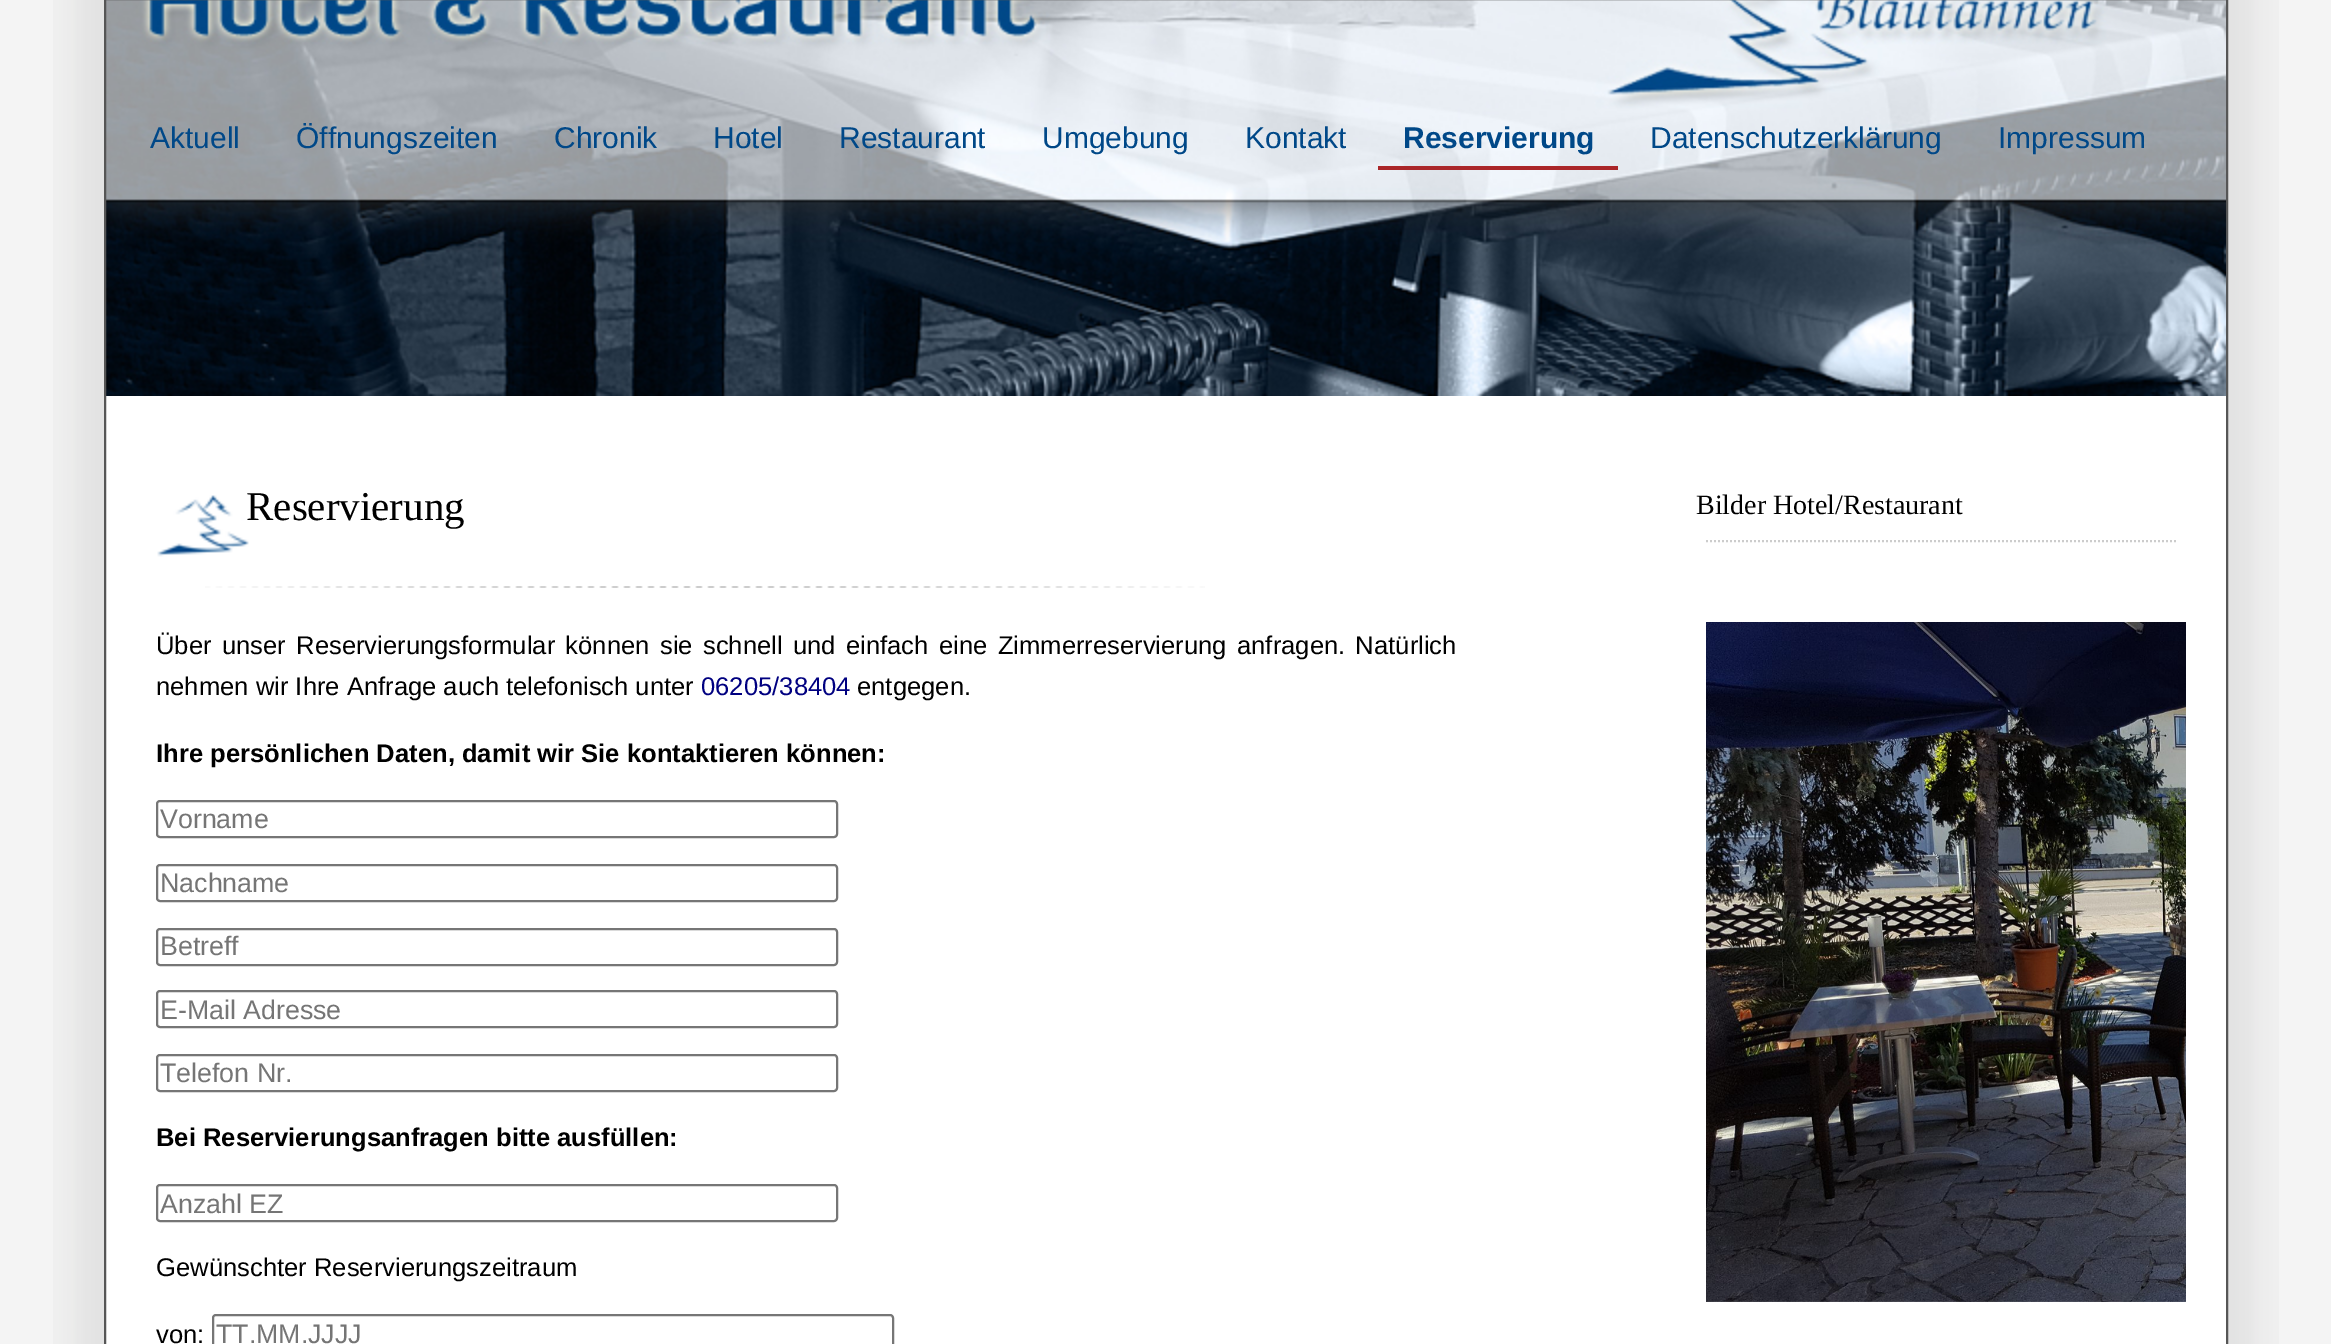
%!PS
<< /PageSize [2331 1344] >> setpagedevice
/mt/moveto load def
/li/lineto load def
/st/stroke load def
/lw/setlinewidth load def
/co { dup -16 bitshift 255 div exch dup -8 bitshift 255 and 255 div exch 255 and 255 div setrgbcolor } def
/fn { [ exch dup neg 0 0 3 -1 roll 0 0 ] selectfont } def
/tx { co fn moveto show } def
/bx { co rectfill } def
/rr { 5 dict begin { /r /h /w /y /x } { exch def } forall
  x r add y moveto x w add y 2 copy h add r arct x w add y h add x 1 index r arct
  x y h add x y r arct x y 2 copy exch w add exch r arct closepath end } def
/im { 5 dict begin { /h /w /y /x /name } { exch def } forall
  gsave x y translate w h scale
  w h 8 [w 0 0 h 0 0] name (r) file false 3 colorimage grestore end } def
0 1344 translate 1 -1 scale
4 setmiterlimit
0 0 2331 1344 16#F4F4F4 bx
(media/1.raw) 53 0 2226 1344 im
106 396 2120 948 16#FFFFFF bx
(media/2.raw) 106 0 2120 396 im
16#565656 co
2 lw
105 -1 2122 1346 rectstroke
1378 166 240 4 16#AA2629 bx
(media/3.raw) 157 495 92 62 im
(media/4.raw) 205 586 1000 2 im
16#767676 co
157 801 680 36 3 rr st
157 865 680 36 3 rr st
157 929 680 36 3 rr st
157 991 680 36 3 rr st
157 1055 680 36 3 rr st
157 1185 680 36 3 rr st
213 1315 680 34 3 rr st
16#CCCCCC co
[2 2] 0 setdash
1706 541 mt 2176 541 li st
(media/5.raw) 1706 622 480 680 im
(Aktuell) 150 148 /LiberationSans-Regular 30 16#004888 tx
(Öffnungszeiten) 296 148 /LiberationSans-Regular 30 16#004888 tx
(Chronik) 554 148 /LiberationSans-Regular 30 16#004888 tx
(Hotel) 713 148 /LiberationSans-Regular 30 16#004888 tx
(Restaurant) 839 148 /LiberationSans-Regular 30 16#004888 tx
(Umgebung) 1042 148 /LiberationSans-Regular 30 16#004888 tx
(Kontakt) 1245 148 /LiberationSans-Regular 30 16#004888 tx
(Reservierung) 1403 148 /LiberationSans-Bold 30 16#004888 tx
(Datenschutzerklärung) 1650 148 /LiberationSans-Regular 30 16#004888 tx
(Impressum) 1998 148 /LiberationSans-Regular 30 16#004888 tx
(Reservierung) 246 520 /LiberationSerif-Regular 41 16#000000 tx
/LiberationSans-Regular 25.6 fn
156 654 mt 3.25 0 32 (Über unser Reservierungsformular können sie schnell und einfach eine Zimmerreservierung anfragen. Natürlich) widthshow
(nehmen wir Ihre Anfrage auch telefonisch unter) 156 695 /LiberationSans-Regular 25.6 16#000000 tx
(06205/38404) 701 695 /LiberationSans-Regular 25.6 16#000080 tx
(entgegen.) 857 695 /LiberationSans-Regular 25.6 16#000000 tx
(Ihre persönlichen Daten, damit wir Sie kontaktieren können:) 156 762 /LiberationSans-Bold 25.6 16#000000 tx
(Vorname) 160 828 /LiberationSans-Regular 26.75 16#757575 tx
(Nachname) 160 892 /LiberationSans-Regular 26.75 16#757575 tx
(Betreff) 160 955 /LiberationSans-Regular 26.75 16#757575 tx
(E-Mail Adresse) 160 1019 /LiberationSans-Regular 26.75 16#757575 tx
(Telefon Nr.) 160 1082 /LiberationSans-Regular 26.75 16#757575 tx
(Bei Reservierungsanfragen bitte ausfüllen:) 156 1146 /LiberationSans-Bold 25.6 16#000000 tx
(Anzahl EZ) 160 1213 /LiberationSans-Regular 26.75 16#757575 tx
(Gewünschter Reservierungszeitraum) 156 1276 /LiberationSans-Regular 25.6 16#000000 tx
(von:) 156 1343 /LiberationSans-Regular 25.6 16#000000 tx
(TT.MM.JJJJ) 216 1343 /LiberationSans-Regular 26.75 16#757575 tx
(Bilder Hotel/Restaurant) 1696 514 /LiberationSerif-Regular 28 16#000000 tx
showpage
